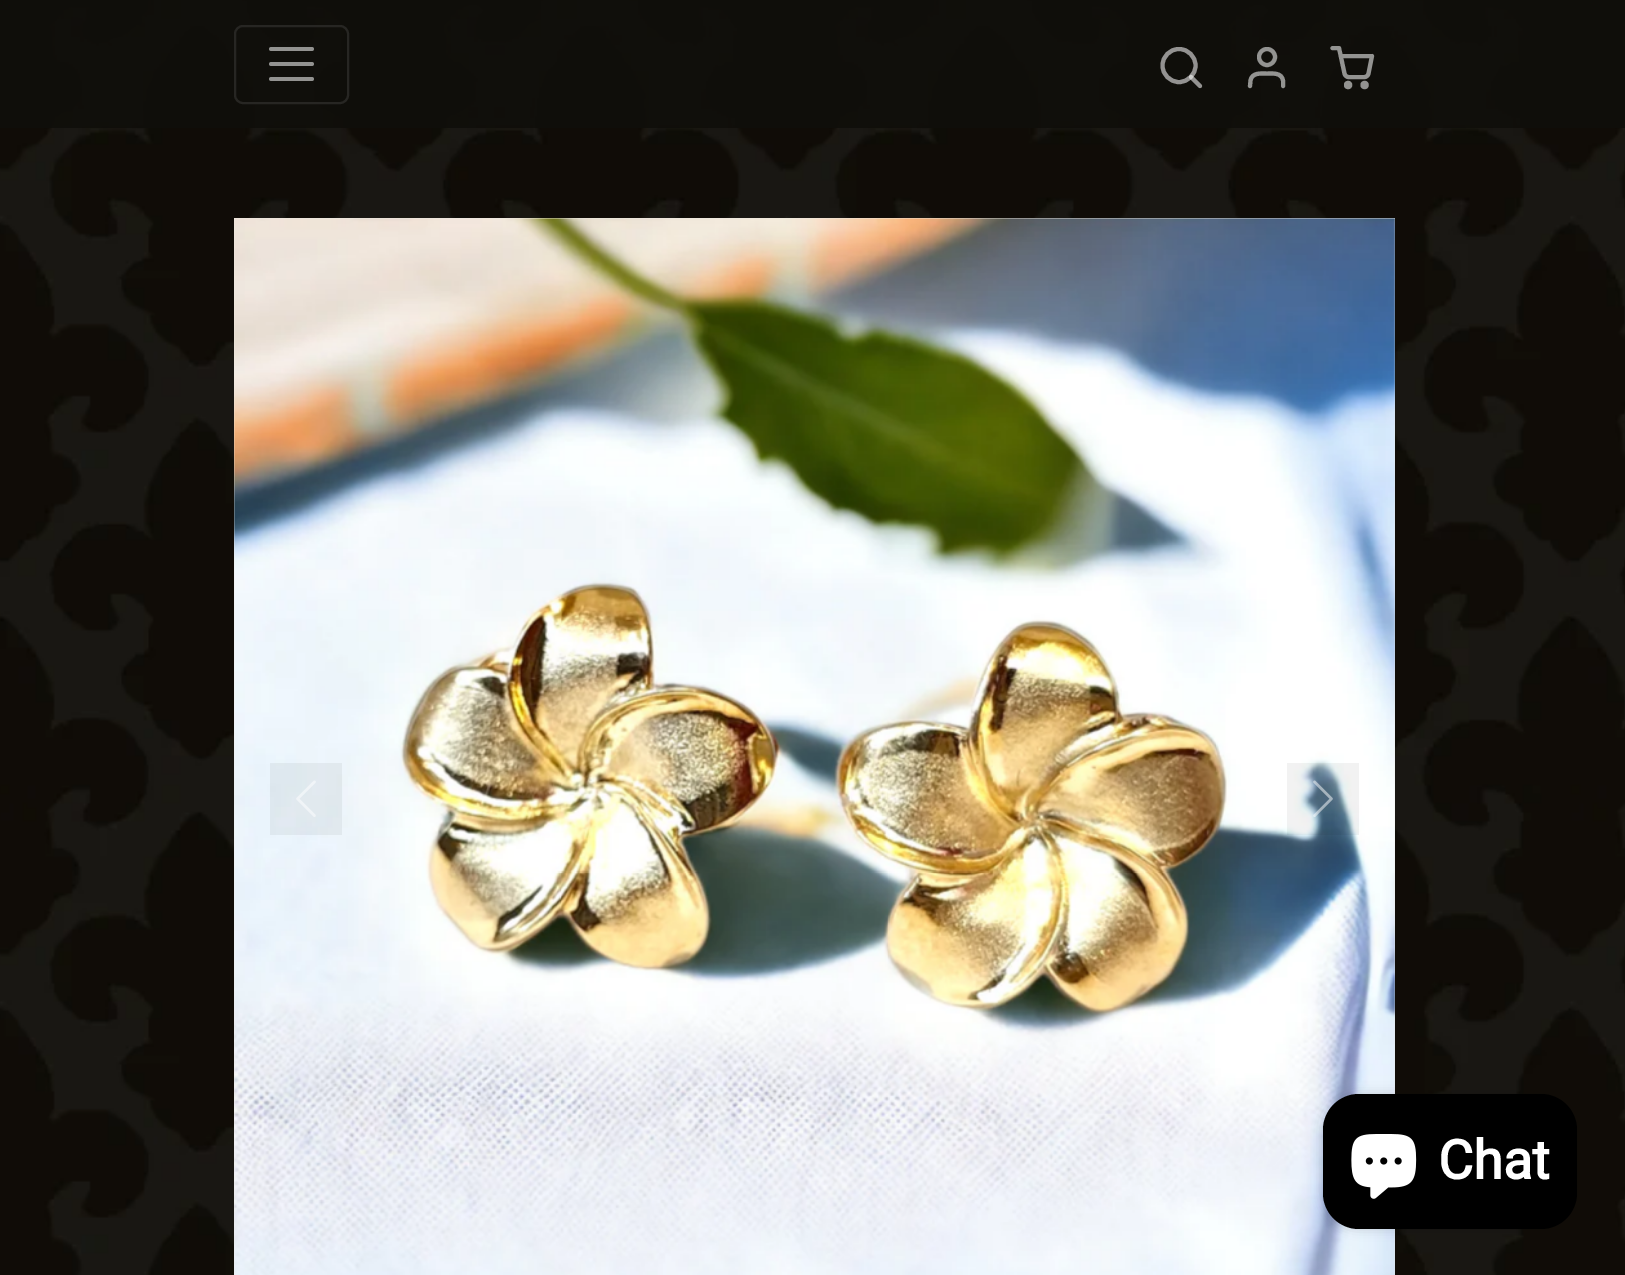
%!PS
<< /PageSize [1625 1275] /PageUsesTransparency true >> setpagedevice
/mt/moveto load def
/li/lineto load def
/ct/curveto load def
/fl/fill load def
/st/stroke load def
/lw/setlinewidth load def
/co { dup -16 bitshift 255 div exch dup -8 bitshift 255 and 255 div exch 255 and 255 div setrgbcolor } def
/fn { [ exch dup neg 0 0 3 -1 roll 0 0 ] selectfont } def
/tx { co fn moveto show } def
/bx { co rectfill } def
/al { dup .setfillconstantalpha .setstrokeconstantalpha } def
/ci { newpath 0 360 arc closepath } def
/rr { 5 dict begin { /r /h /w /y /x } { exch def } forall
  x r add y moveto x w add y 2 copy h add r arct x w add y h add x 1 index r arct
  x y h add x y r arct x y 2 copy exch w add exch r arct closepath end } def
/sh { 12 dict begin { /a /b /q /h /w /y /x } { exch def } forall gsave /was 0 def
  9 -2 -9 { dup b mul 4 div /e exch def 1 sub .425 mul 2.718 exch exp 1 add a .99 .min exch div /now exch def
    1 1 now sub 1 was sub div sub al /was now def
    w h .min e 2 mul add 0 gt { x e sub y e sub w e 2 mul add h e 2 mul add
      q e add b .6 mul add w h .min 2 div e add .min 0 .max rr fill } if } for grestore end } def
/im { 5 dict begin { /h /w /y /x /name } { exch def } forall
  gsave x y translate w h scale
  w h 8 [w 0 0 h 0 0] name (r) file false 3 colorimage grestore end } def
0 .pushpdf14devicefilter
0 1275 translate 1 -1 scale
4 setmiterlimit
0 0 1625 1275 16#FFFFFF bx
(media/1.raw) 0 0 1625 1275 im
0.94 al
0 0 1625 128 16#0F0E0A bx
1 al
16#272623 co
2 lw
235 26 113 77 8 rr st
16#939391 co
3.8 lw
1 setlinecap
271 49 mt 312 49 li 271 64 mt 312 64 li 271 79 mt 312 79 li st
16#939291 co
4.1 lw
0 setlinecap
1179 65.5 16.5 ci st
0.55 al
16#FFFFFF co
1 setlinecap
1 setlinejoin
1200 86 mt 1191 77 li st
1 al
16#939391 co
0 setlinecap
0 setlinejoin
1267 57 8 ci st
1 setlinecap
1 setlinejoin
1283 86 mt 1283 80.5 li 1281.5 72.5 1273 73.5 1267 73.5 ct 1260.5 73.5 1252 72.5 1250.5 80.5 ct 1250 86 li st
1332.5 48 mt 1339 48 li 1344.5 73.5 li 1345 75.5 1346.5 77 1348.5 77 ct 1364.5 77 li 1366.5 77 1368 75.5 1368.5 73.5 ct 1372 56 li 1342 56 li st
0 setlinecap
0 setlinejoin
1348.1 85 2.1 ci st
16#939291 co
1364.6 85 2.1 ci st
234 218 1161 1057 16#EBE8E0 bx
(media/2.raw) 234 218 1161 1057 im
0.05 al
270 763 72 72 16#000000 bx
1 al
(media/3.raw) 296 780 20 37 im
0.05 al
1287 763 72 72 16#000000 bx
1 al
(media/4.raw) 1313 780 20 37 im
1323 1094 254 135 36 5.5 .15 sh
1323 1094 254 135 36 rr fl
(media/5.raw) 1351 1134 66 65 im
(Chat) 1438 1179 /Roboto-Bold 54 16#FFFFFF tx
.poppdf14devicefilter showpage
